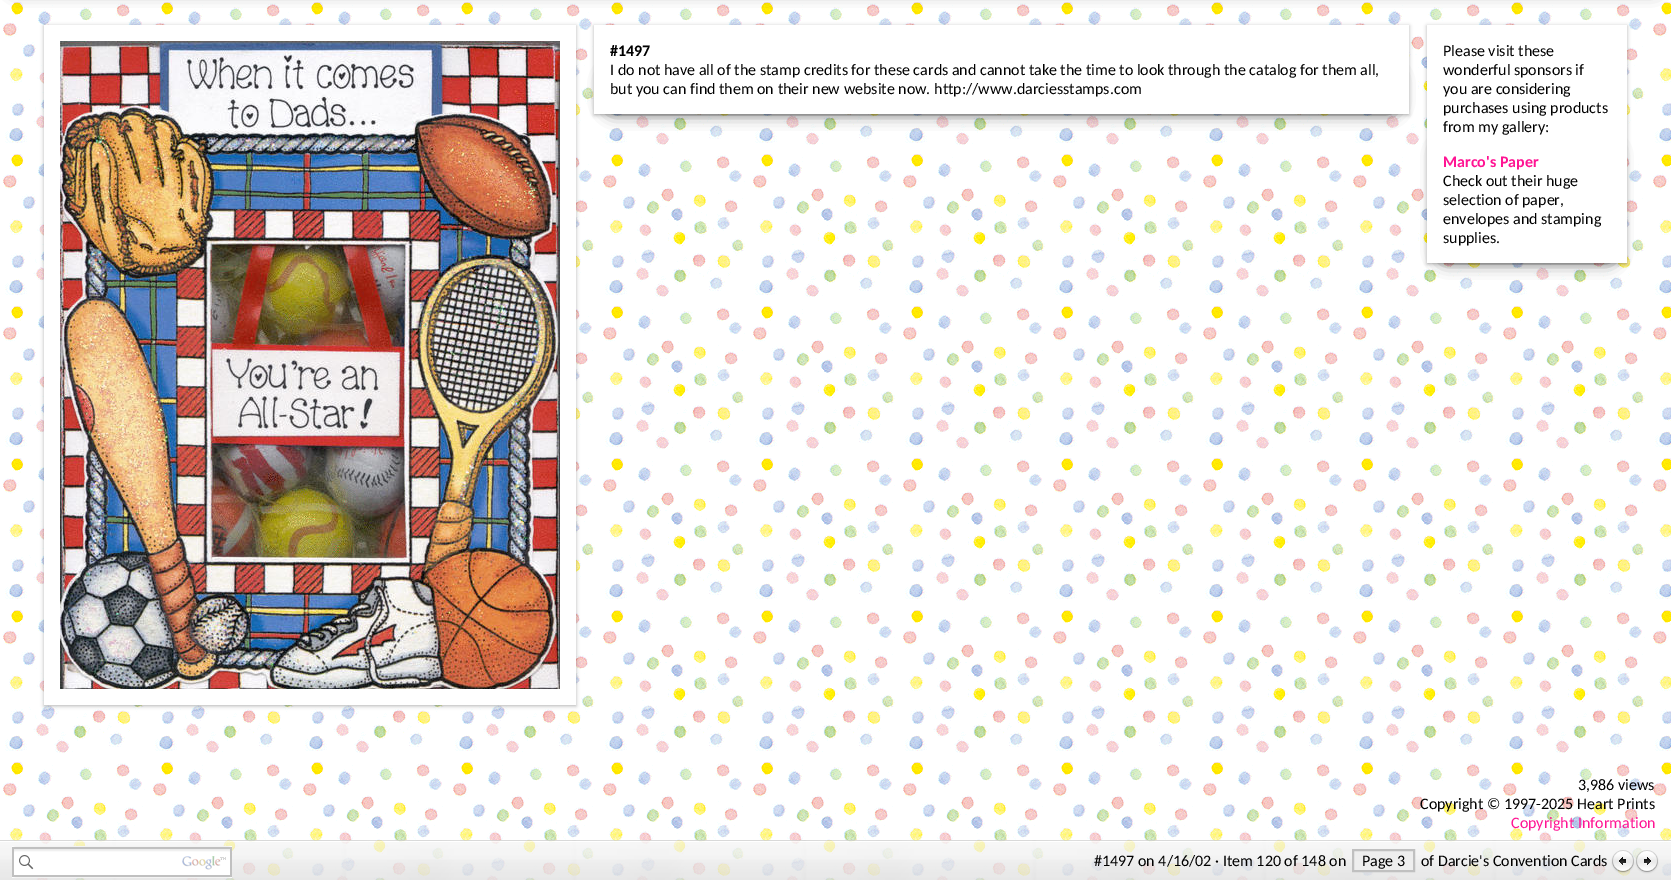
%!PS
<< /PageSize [1671 880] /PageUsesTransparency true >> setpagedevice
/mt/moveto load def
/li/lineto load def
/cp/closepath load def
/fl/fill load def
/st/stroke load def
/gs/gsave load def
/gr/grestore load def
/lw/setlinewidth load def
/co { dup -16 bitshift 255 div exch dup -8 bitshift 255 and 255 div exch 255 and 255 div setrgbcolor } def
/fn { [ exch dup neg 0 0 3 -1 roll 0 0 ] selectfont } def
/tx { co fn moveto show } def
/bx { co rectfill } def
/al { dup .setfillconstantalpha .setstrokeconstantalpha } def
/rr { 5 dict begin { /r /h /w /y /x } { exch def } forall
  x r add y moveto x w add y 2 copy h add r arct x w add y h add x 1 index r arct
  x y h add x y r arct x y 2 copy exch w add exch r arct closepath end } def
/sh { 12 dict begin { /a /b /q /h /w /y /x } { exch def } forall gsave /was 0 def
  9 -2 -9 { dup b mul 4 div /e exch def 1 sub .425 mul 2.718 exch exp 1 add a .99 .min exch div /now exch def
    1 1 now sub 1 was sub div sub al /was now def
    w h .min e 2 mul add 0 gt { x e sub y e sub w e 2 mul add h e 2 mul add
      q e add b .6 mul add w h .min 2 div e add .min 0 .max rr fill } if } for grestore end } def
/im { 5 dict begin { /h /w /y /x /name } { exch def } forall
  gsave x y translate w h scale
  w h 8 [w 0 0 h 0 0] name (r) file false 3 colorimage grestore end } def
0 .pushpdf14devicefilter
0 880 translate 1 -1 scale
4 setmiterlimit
0 0 1671 880 16#FFFFFF bx
(media/1.raw) 2 2 1669 878 im
16#000000 co
10 -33 1651 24 10 7.5 .6 sh
44 26 532 680 0 2 .3 sh
44 25 532 680 16#FFFFFF bx
(media/2.raw) 60 41 500 648 im
16#000000 co
594 26 815 89 0 2 .3 sh
604 70 795 44 10 7.5 .6 sh
594 25 815 89 16#FFFFFF bx
16#000000 co
1427 26 200 238 0 2 .3 sh
1437 144 180 119 9 7.5 .6 sh
1427 25 200 238 16#FFFFFF bx
(media/3.raw) 0 840 1671 40 im
12 846 220 32 16#FFFFFF bx
(media/4.raw) 12 846 220 32 im
16#EEEEEE co
1353 850 mt 1414 850 li 1414 871 li 1353 871 li cp gs fl gr
16#C0C0C0 co
2 lw
st
(media/5.raw) 1611 850 24 24 im
(media/6.raw) 1635 850 24 24 im
(#1497) 610 56 /Carlito-Bold 16 16#000000 tx
(I do not have all of the stamp credits for these cards and cannot take the time to look through the catalog for them all,) 610 75 /Carlito-Regular 16 16#000000 tx
(but you can find them on their new website now. http://www.darciesstamps.com) 610 94 /Carlito-Regular 16 16#000000 tx
(Please visit these) 1443 56 /Carlito-Regular 16 16#000000 tx
(wonderful sponsors if) 1443 75 /Carlito-Regular 16 16#000000 tx
(you are considering) 1443 94 /Carlito-Regular 16 16#000000 tx
(purchases using products) 1443 113 /Carlito-Regular 16 16#000000 tx
(from my gallery:) 1443 132 /Carlito-Regular 16 16#000000 tx
(Marco's Paper) 1443 167 /Carlito-Bold 16 16#FF1493 tx
(Check out their huge) 1443 186 /Carlito-Regular 16 16#000000 tx
(selection of paper,) 1443 205 /Carlito-Regular 16 16#000000 tx
(envelopes and stamping) 1443 224 /Carlito-Regular 16 16#000000 tx
(supplies.) 1443 243 /Carlito-Regular 16 16#000000 tx
(3,986 views) 1578 790 /Carlito-Regular 16 16#000000 tx
(Copyright © 1997-2025 Heart Prints) 1420 809 /Carlito-Regular 16 16#000000 tx
(Copyright Information) 1511 828 /Carlito-Regular 16 16#FF1493 tx
(#1497 on 4/16/02 · Item 120 of 148 on) 1094 866 /Carlito-Regular 16 16#000000 tx
(Page 3) 1362 866 /Carlito-Regular 16 16#000000 tx
(of Darcie's Convention Cards) 1421 866 /Carlito-Regular 16 16#000000 tx
.poppdf14devicefilter showpage
